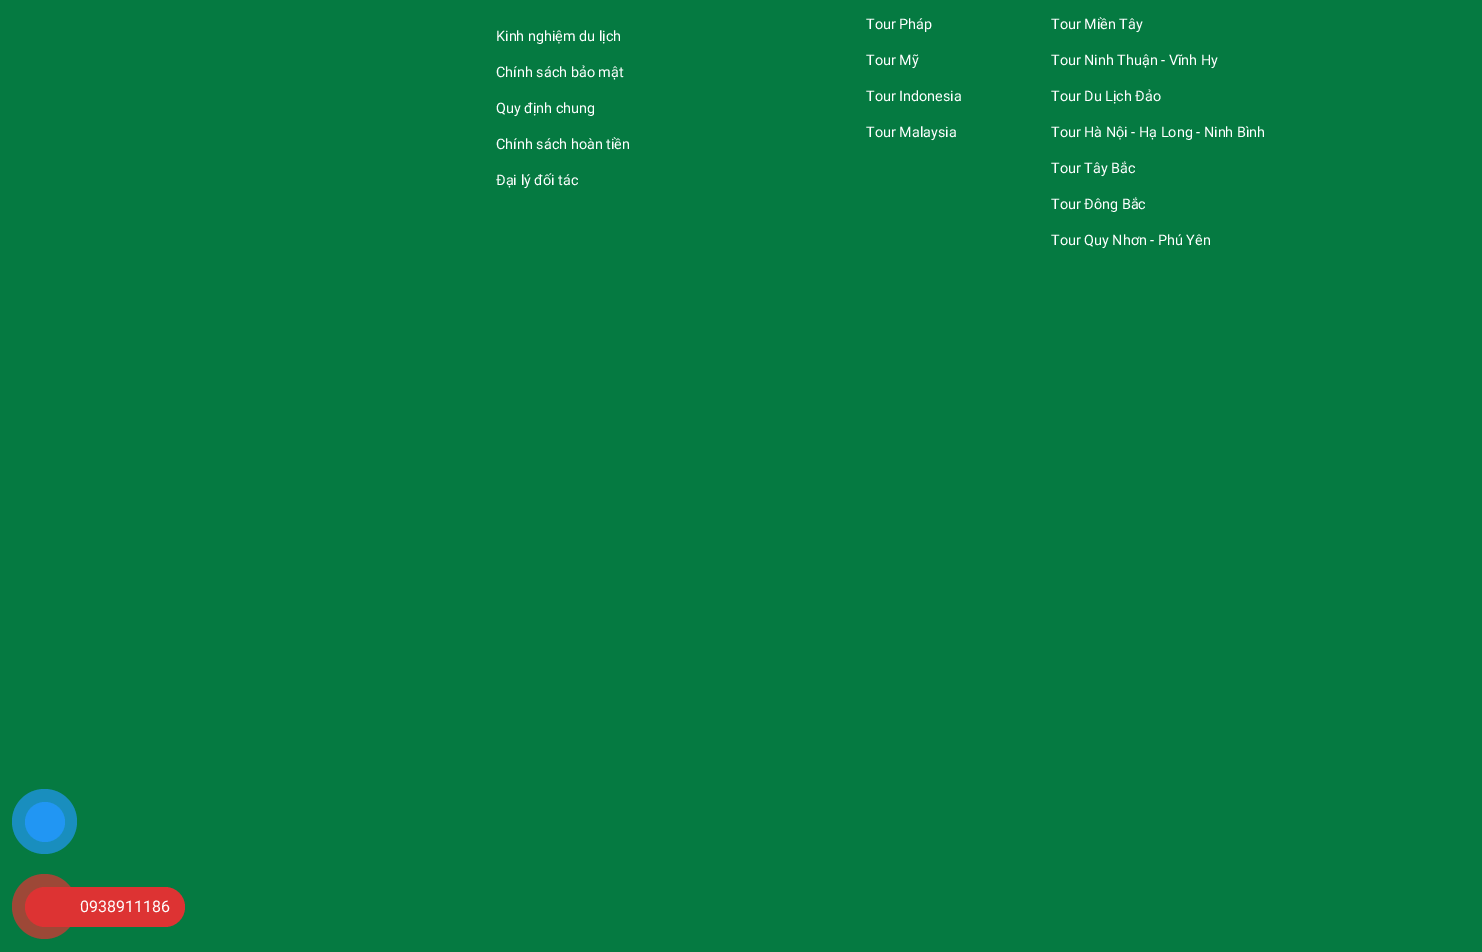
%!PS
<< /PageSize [1482 952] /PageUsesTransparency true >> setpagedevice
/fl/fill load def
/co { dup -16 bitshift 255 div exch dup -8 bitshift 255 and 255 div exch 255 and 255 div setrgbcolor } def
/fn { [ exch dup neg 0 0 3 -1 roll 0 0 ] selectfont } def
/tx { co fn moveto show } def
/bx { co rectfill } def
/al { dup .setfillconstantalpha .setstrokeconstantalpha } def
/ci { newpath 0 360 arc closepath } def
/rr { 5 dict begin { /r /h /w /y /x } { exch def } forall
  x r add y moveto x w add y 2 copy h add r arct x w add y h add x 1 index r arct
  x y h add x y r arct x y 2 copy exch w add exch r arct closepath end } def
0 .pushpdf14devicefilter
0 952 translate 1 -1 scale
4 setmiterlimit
0 0 1482 952 16#057A41 bx
16#198EBE co
44.5 821.5 32.5 ci fl
16#2196F3 co
45 822 20 ci fl
16#DD3333 co
30 887 155 40 20 rr fl
0.7 al
44.5 906.5 32.5 ci fl
1 al
45 907 20 ci fl
(Kinh nghiệm du lịch) 496 41 /Roboto-Regular 14.4 16#FFFFFF tx
(Chính sách bảo mật) 496 77 /Roboto-Regular 14.4 16#FFFFFF tx
(Quy định chung) 496 113 /Roboto-Regular 14.4 16#FFFFFF tx
(Chính sách hoàn tiền) 496 149 /Roboto-Regular 14.4 16#FFFFFF tx
(Đại lý đối tác) 496 185 /Roboto-Regular 14.4 16#FFFFFF tx
(Tour Pháp) 866 29 /Roboto-Regular 14.4 16#FFFFFF tx
(Tour Mỹ) 866 65 /Roboto-Regular 14.4 16#FFFFFF tx
(Tour Indonesia) 866 101 /Roboto-Regular 14.4 16#FFFFFF tx
(Tour Malaysia) 866 137 /Roboto-Regular 14.4 16#FFFFFF tx
(Tour Miền Tây) 1051 29 /Roboto-Regular 14.4 16#FFFFFF tx
(Tour Ninh Thuận - Vĩnh Hy) 1051 65 /Roboto-Regular 14.4 16#FFFFFF tx
(Tour Du Lịch Đảo) 1051 101 /Roboto-Regular 14.4 16#FFFFFF tx
(Tour Hà Nội - Hạ Long - Ninh Bình) 1051 137 /Roboto-Regular 14.4 16#FFFFFF tx
(Tour Tây Bắc) 1051 173 /Roboto-Regular 14.4 16#FFFFFF tx
(Tour Đông Bắc) 1051 209 /Roboto-Regular 14.4 16#FFFFFF tx
(Tour Quy Nhơn - Phú Yên) 1051 245 /Roboto-Regular 14.4 16#FFFFFF tx
(0938911186) 80 912 /Roboto-Regular 16 16#FFFFFF tx
.poppdf14devicefilter showpage
